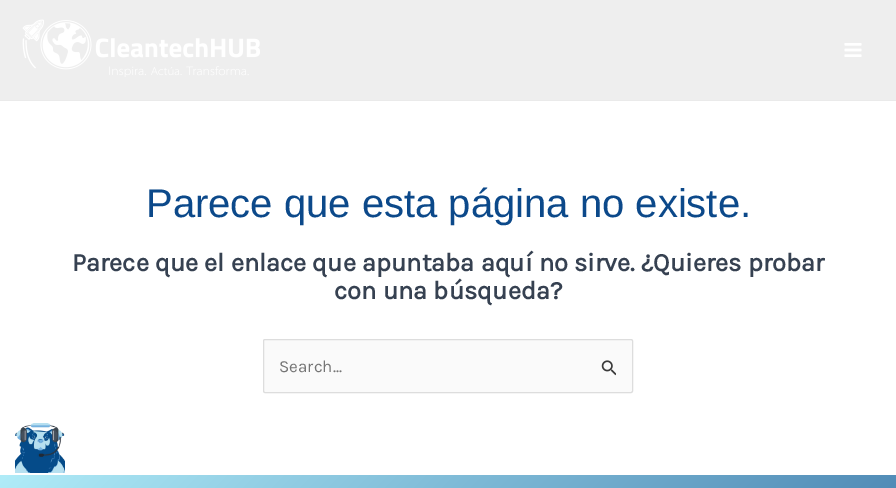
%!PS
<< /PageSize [896 488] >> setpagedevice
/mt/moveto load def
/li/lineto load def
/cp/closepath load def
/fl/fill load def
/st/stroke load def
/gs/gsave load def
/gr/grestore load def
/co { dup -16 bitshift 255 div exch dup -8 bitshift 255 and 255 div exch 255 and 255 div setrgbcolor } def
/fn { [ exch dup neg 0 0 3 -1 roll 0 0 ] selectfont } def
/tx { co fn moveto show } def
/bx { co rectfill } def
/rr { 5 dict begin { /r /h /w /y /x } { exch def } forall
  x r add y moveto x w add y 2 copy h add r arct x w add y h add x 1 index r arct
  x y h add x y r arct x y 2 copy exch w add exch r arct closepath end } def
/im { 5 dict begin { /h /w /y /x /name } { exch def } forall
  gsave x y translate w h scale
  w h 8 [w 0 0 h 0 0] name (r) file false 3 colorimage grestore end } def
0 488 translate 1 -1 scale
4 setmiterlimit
0 0 896 488 16#FFFFFF bx
0 0 896 100 16#EEEEEE bx
0 100 896 1 16#EAEAEA bx
(media/1.raw) 22 19 238 58 im
(media/2.raw) 844 43 18 14 im
16#FAFAFA co
263.5 339.5 369 53 1.5 rr gs fl gr
16#DDDDDD co
st
(media/3.raw) 601 360 15 16 im
gs 0 475 mt 896 475 li 896 488 li 0 488 li cp clip newpath
<< /ShadingType 2 /ColorSpace /DeviceRGB /Coords [69 406 827 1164] /Extend [true true] /Function << /FunctionType 2 /Domain [0 1] /C0 [.69 .925 .973] /C1 [.067 .298 .549] /N 1 >> >> shfill gr
(media/4.raw) 15 423 50 50 im
(Parece que esta página no existe.) 146 217 /LiberationSans-Regular 40 16#0C498A tx
(Parece que el enlace que apuntaba aquí no sirve. ¿Quieres probar) 72 271 /Karla-Bold 25.5 16#364151 tx
(con una búsqueda?) 334 299 /Karla-Bold 25.5 16#364151 tx
(Search...) 279 372 /Karla-Regular 17 16#757575 tx
showpage
